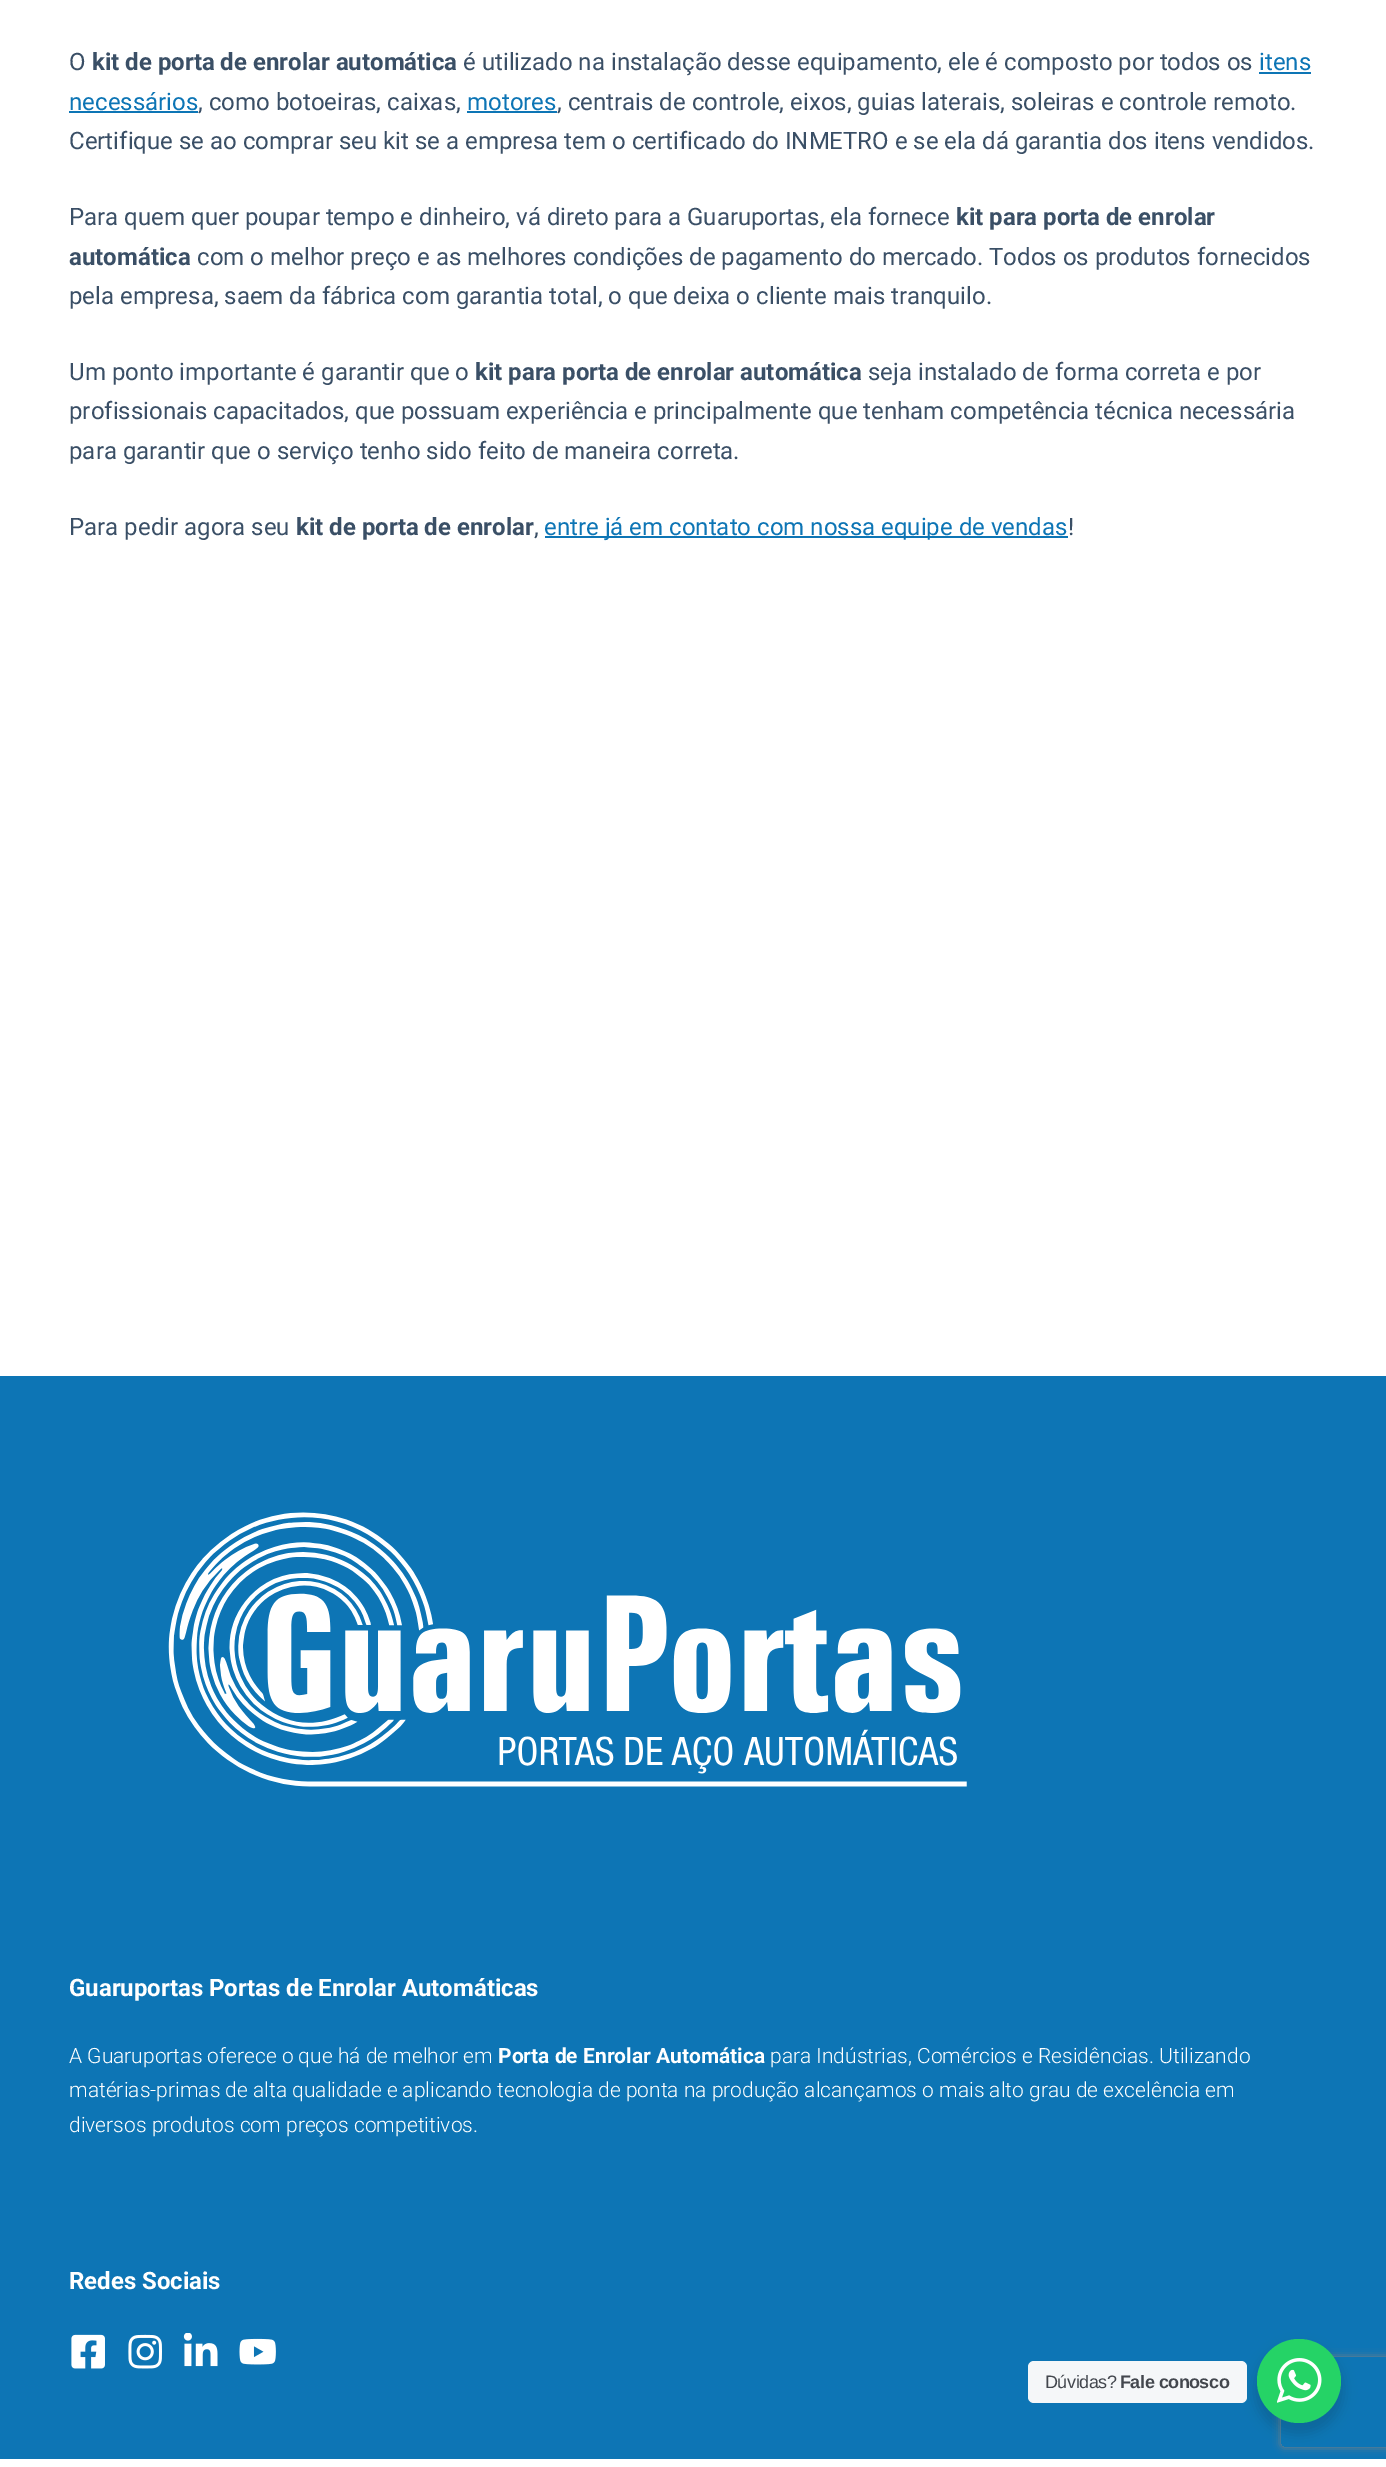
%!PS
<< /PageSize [1386 2467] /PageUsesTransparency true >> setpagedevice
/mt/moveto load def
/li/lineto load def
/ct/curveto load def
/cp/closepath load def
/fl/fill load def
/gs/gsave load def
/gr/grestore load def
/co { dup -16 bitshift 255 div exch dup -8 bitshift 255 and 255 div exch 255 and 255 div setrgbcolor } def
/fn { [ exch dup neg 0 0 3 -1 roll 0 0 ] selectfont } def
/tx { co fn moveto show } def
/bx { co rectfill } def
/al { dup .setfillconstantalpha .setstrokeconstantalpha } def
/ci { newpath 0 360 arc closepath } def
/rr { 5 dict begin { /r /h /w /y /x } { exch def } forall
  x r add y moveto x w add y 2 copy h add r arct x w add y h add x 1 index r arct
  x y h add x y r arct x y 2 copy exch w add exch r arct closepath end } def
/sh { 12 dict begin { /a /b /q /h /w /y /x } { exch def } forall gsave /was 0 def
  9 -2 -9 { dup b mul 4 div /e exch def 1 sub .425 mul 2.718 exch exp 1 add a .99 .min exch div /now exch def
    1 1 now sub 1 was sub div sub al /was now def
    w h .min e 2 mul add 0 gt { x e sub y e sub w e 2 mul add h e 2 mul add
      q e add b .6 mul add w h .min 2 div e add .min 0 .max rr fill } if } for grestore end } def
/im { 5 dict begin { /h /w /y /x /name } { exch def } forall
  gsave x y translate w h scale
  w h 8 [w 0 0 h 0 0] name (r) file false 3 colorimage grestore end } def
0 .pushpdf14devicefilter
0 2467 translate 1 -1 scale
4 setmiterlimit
0 0 1386 2467 16#FFFFFF bx
1259 72 52 2 16#0D75B5 bx
69 111 129 2 16#0D75B5 bx
467 111 90 2 16#0D75B5 bx
545 536 523 2 16#0D75B5 bx
0 1376 1386 1083 16#0D75B5 bx
(media/1.raw) 168 1512 799 275 im
(media/2.raw) 71 2334 34 35 im
(media/3.raw) 128 2334 34 35 im
(media/4.raw) 183 2333 35 34 im
(media/5.raw) 239 2338 37 27 im
16#000000 co
1254 2345 90 90 45 6 .14 sh
16#F5F7F9 co
1028 2361 219 42 6 rr fl
gs
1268 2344 mt 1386 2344 li 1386 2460 li 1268 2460 li cp 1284 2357 mt 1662 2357 li 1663.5 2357 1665 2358.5 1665 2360 ct 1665 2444 li 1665 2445.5 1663.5 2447 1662 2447 ct 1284 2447 li 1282.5 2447 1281 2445.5 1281 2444 ct 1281 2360 li 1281 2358.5 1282.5 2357 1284 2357 ct cp eoclip newpath
16#808080 co
1281 2357 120 90 3 4 1 sh
gr
16#25D366 co
1299 2381 42 ci fl
(media/6.raw) 1277 2358 45 45 im
(O) 69 70 /Roboto-Regular 24 16#3A4F66 tx
(kit de porta de enrolar automática) 92 70 /Roboto-Bold 24 16#3A4F66 tx
(é utilizado na instalação desse equipamento, ele é composto por todos os) 463 70 /Roboto-Regular 24 16#3A4F66 tx
(itens) 1259 70 /Roboto-Regular 24 16#0D75B5 tx
(necessários) 69 110 /Roboto-Regular 24 16#0D75B5 tx
(, como botoeiras, caixas,) 198 110 /Roboto-Regular 24 16#3A4F66 tx
(motores) 467 110 /Roboto-Regular 24 16#0D75B5 tx
(, centrais de controle, eixos, guias laterais, soleiras e controle remoto.) 557 110 /Roboto-Regular 24 16#3A4F66 tx
(Certifique se ao comprar seu kit se a empresa tem o certificado do INMETRO e se ela dá garantia dos itens vendidos.) 69 149 /Roboto-Regular 24 16#3A4F66 tx
(Para quem quer poupar tempo e dinheiro, vá direto para a Guaruportas, ela fornece) 69 225 /Roboto-Regular 24 16#3A4F66 tx
(kit para porta de enrolar) 956 225 /Roboto-Bold 24 16#3A4F66 tx
(automática) 69 265 /Roboto-Bold 24 16#3A4F66 tx
(com o melhor preço e as melhores condições de pagamento do mercado. Todos os produtos fornecidos) 197 265 /Roboto-Regular 24 16#3A4F66 tx
(pela empresa, saem da fábrica com garantia total, o que deixa o cliente mais tranquilo.) 69 304 /Roboto-Regular 24 16#3A4F66 tx
(Um ponto importante é garantir que o) 69 380 /Roboto-Regular 24 16#3A4F66 tx
(kit para porta de enrolar automática) 475 380 /Roboto-Bold 24 16#3A4F66 tx
(seja instalado de forma correta e por) 868 380 /Roboto-Regular 24 16#3A4F66 tx
(profissionais capacitados, que possuam experiência e principalmente que tenham competência técnica necessária) 69 419 /Roboto-Regular 24 16#3A4F66 tx
(para garantir que o serviço tenho sido feito de maneira correta.) 69 459 /Roboto-Regular 24 16#3A4F66 tx
(Para pedir agora seu) 69 535 /Roboto-Regular 24 16#3A4F66 tx
(kit de porta de enrolar) 296 535 /Roboto-Bold 24 16#3A4F66 tx
(,) 534 535 /Roboto-Regular 24 16#3A4F66 tx
(entre já em contato com nossa equipe de vendas) 544 535 /Roboto-Regular 24 16#0D75B5 tx
(!) 1068 535 /Roboto-Regular 24 16#3A4F66 tx
(Guaruportas Portas de Enrolar Automáticas) 69 1996 /Roboto-Bold 24 16#FFFFFF tx
(A Guaruportas oferece o que há de melhor em) 69 2063 /Roboto-Light 21 16#FFFFFF tx
(Porta de Enrolar Automática) 498 2063 /Roboto-Bold 21 16#FFFFFF tx
(para Indústrias, Comércios e Residências. Utilizando) 770 2063 /Roboto-Light 21 16#FFFFFF tx
(matérias-primas de alta qualidade e aplicando tecnologia de ponta na produção alcançamos o mais alto grau de excelência em) 69 2097 /Roboto-Light 21 16#FFFFFF tx
(diversos produtos com preços competitivos.) 69 2132 /Roboto-Light 21 16#FFFFFF tx
(Redes Sociais) 69 2289 /Roboto-Bold 24 16#FFFFFF tx
/LiberationSans-Regular 18 fn
16#43474E co
1045 2388 mt -.5 0 (Dúvidas?) ashow
/LiberationSans-Bold 18 fn
1120 2388 mt -.5 0 (Fale conosco) ashow
.poppdf14devicefilter showpage
